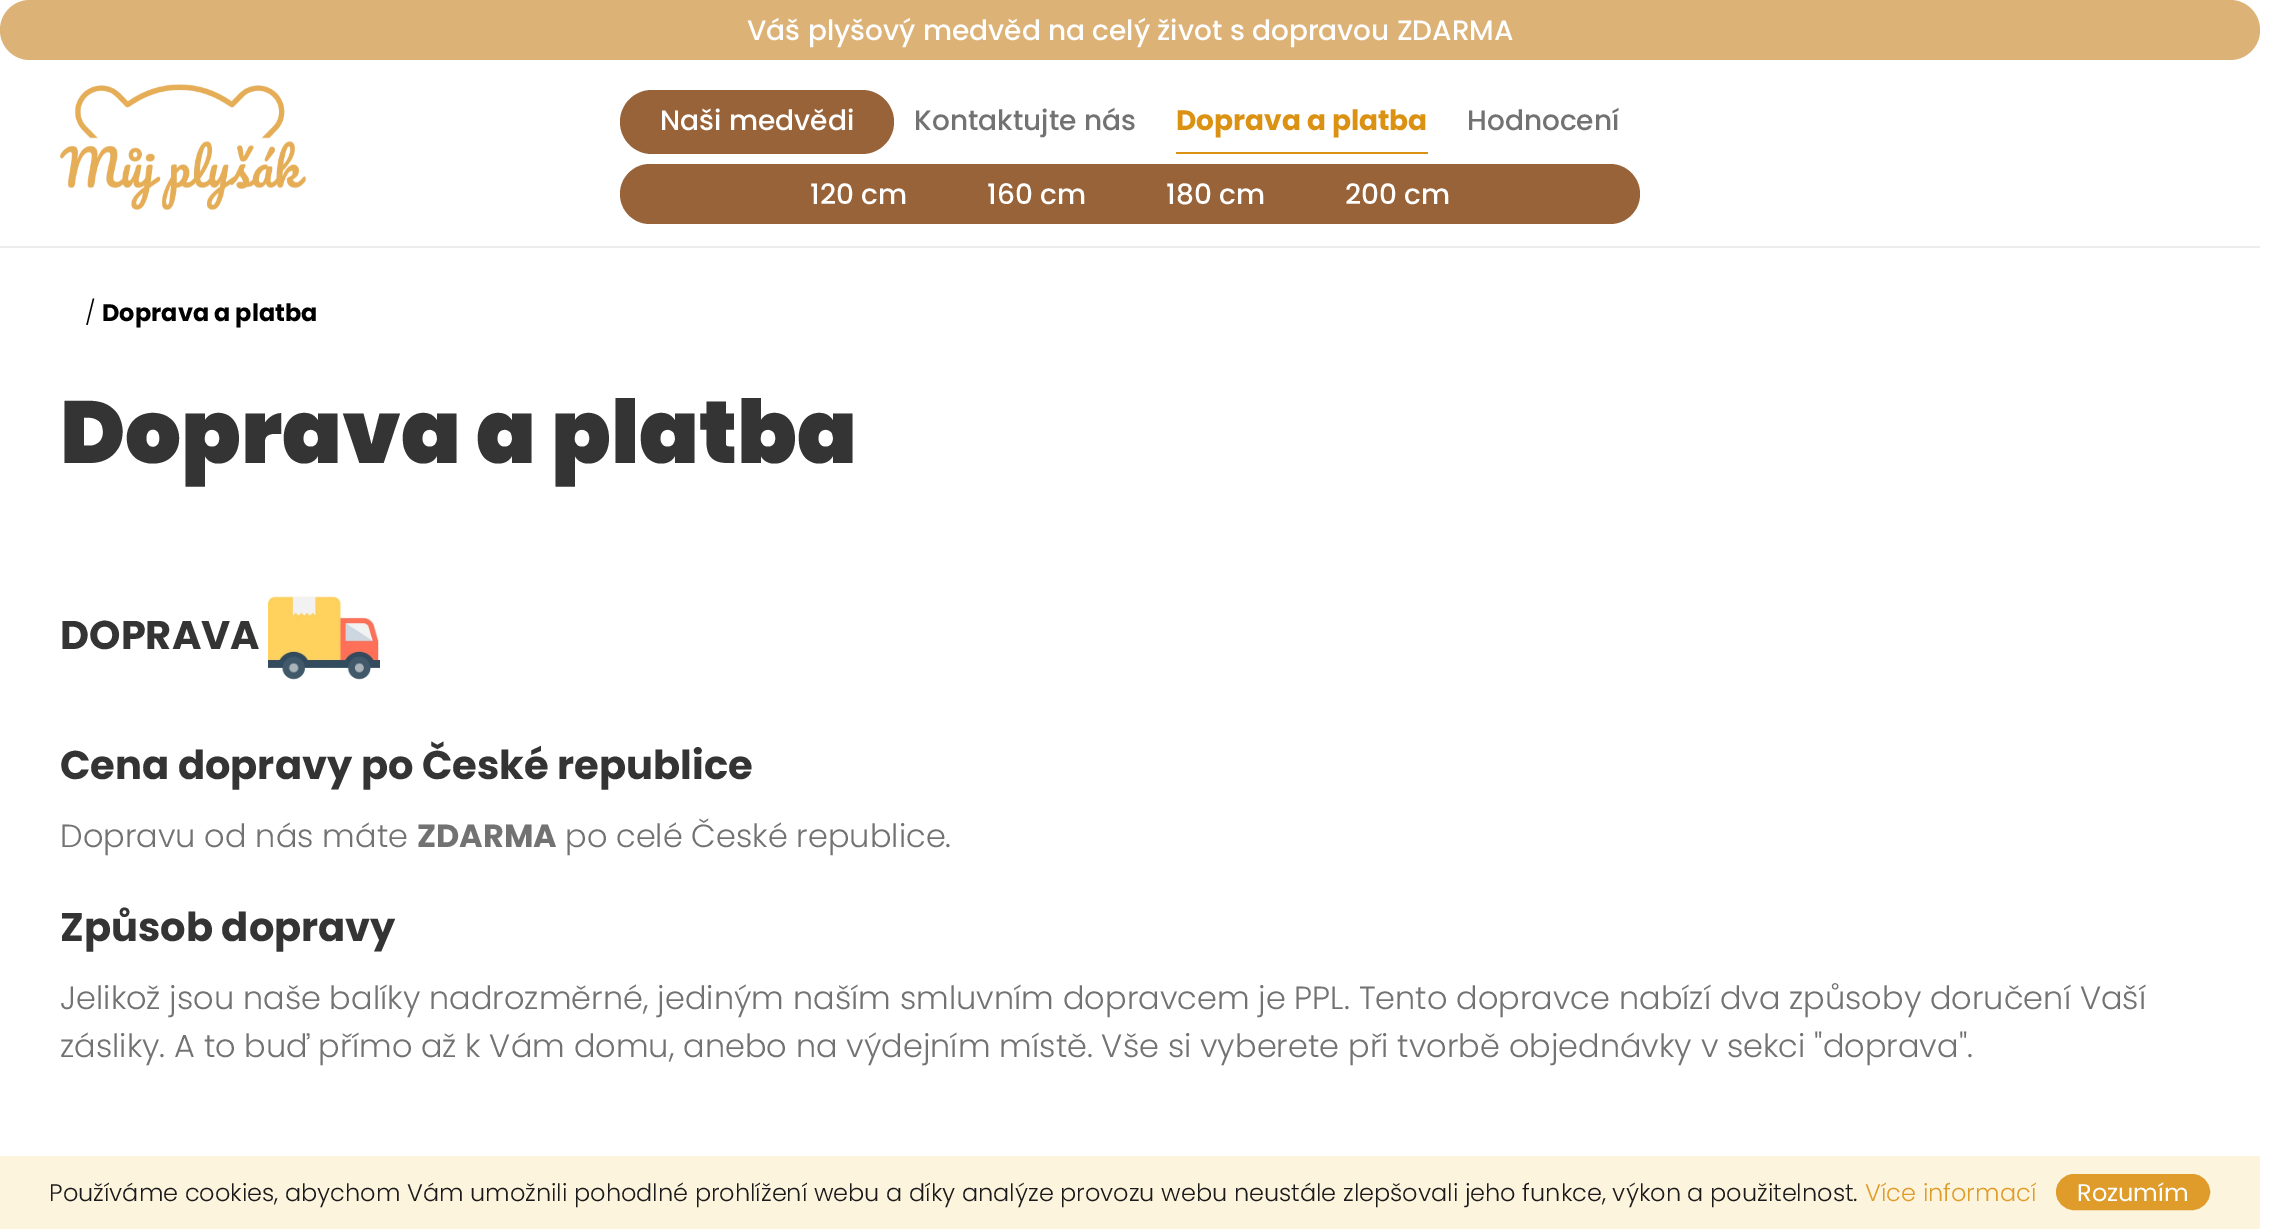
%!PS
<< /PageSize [2290 1229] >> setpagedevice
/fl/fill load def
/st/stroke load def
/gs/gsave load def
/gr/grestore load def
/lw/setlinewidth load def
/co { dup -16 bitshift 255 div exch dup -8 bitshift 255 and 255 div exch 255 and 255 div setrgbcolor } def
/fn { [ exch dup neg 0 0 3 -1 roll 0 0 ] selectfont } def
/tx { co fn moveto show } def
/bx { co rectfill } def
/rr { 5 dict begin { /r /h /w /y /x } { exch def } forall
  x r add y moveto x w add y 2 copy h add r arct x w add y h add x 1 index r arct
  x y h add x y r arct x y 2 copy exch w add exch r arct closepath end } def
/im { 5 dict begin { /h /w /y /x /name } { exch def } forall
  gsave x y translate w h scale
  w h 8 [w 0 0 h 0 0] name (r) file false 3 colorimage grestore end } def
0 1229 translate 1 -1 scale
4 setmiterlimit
0 0 2290 1229 16#FFFFFF bx
0 246 2260 2 16#EDEDEB bx
16#DCB276 co
0 0 2260 60 30 rr fl
(media/1.raw) 60 84 246 126 im
16#986339 co
620 90 274 64 32 rr fl
620 164 1020 60 30 rr fl
1176 152 252 2 16#DB9112 bx
(media/2.raw) 268 596 112 84 im
0 1156 2260 73 16#FDF4DE bx
16#DF9C2A co
2057 1175 152 34 17 rr gs fl gr
2 lw
st
(Váš plyšový medvěd na celý život s dopravou ZDARMA) 747 40 /Poppins-Medium 28 16#FFFFFF tx
(Kontaktujte nás) 914 130 /Poppins-Medium 28 16#727272 tx
(Hodnocení) 1467 130 /Poppins-Medium 28 16#727272 tx
(Naši medvědi) 660 130 /Poppins-Medium 28 16#FFFFFF tx
(120 cm) 810 204 /Poppins-Medium 28 16#FFFFFF tx
(160 cm) 987 204 /Poppins-Medium 28 16#FFFFFF tx
(180 cm) 1166 204 /Poppins-Medium 28 16#FFFFFF tx
(200 cm) 1345 204 /Poppins-Medium 28 16#FFFFFF tx
(Doprava a platba) 1176 130 /Poppins-Bold 28 16#DB9112 tx
(/) 85 321 /Poppins-Light 24 16#000000 tx
(Doprava a platba) 102 321 /Poppins-Bold 24 16#000000 tx
(Doprava a platba) 60 463 /Poppins-Black 88 16#343434 tx
(DOPRAVA) 60 649 /Poppins-Bold 40 16#343434 tx
(Cena dopravy po České republice) 60 779 /Poppins-Bold 40 16#343434 tx
(Dopravu od nás máte) 60 847 /Poppins-Light 32 16#727272 tx
(ZDARMA) 417 847 /Poppins-Bold 32 16#727272 tx
(po celé České republice.) 565 847 /Poppins-Light 32 16#727272 tx
(Způsob dopravy) 60 941 /Poppins-Bold 40 16#343434 tx
(Jelikož jsou naše balíky nadrozměrné, jediným naším smluvním dopravcem je PPL. Tento dopravce nabízí dva způsoby doručení Vaší) 60 1009 /Poppins-Light 32 16#727272 tx
(zásliky. A to buď přímo až k Vám domu, anebo na výdejním místě. Vše si vyberete při tvorbě objednávky v sekci "doprava".) 60 1057 /Poppins-Light 32 16#727272 tx
(Používáme cookies, abychom Vám umožnili pohodlné prohlížení webu a díky analýze provozu webu neustále zlepšovali jeho funkce, výkon a použitelnost.) 49 1201 /Poppins-Light 24 16#1A1A1A tx
(Více informací) 1865 1201 /Poppins-Light 24 16#DF9C2A tx
(Rozumím) 2077 1201 /Poppins-Regular 24 16#FFFFFF tx
showpage
